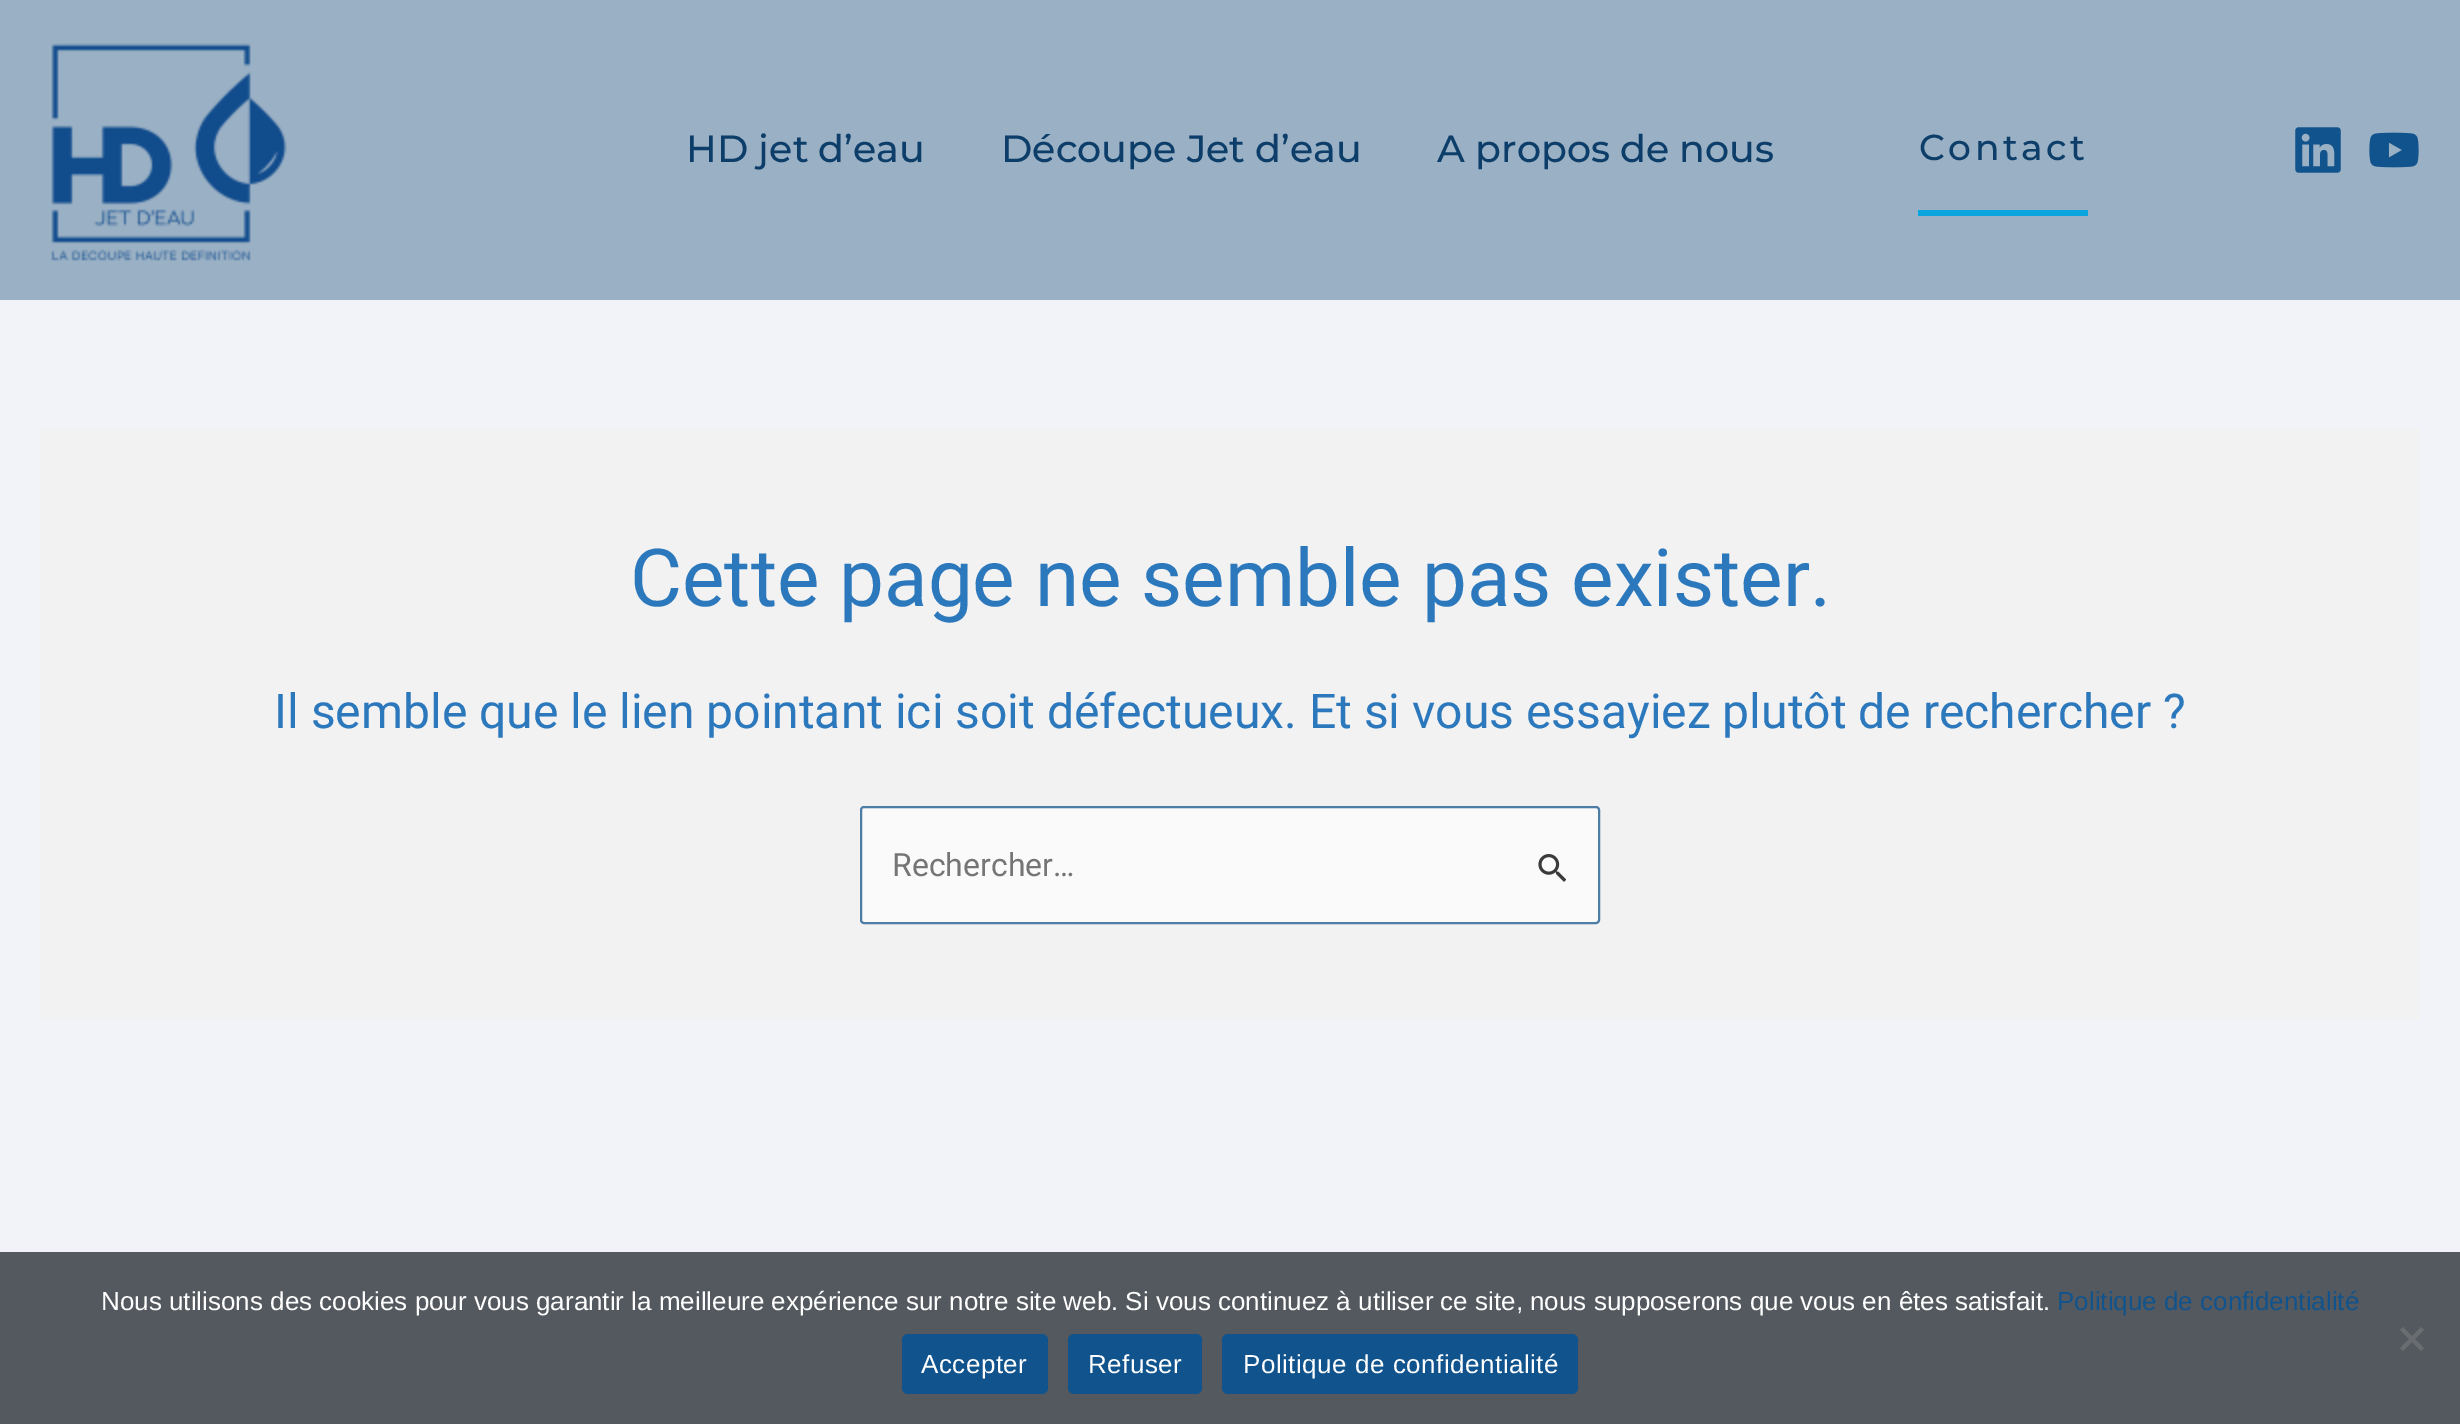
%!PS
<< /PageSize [2460 1424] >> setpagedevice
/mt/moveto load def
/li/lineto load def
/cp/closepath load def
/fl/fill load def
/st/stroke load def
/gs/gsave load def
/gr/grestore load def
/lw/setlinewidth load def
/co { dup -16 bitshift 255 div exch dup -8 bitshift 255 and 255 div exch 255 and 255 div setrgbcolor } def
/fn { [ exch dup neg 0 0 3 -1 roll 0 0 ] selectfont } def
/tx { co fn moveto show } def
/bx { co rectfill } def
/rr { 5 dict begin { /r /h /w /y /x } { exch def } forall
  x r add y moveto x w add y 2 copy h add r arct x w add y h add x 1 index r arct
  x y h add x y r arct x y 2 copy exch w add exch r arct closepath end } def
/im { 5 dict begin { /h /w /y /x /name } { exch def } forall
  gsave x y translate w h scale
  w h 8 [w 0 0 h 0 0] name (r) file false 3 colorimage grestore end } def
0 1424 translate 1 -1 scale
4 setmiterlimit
0 0 2460 1424 16#F1F3F8 bx
0 0 2460 300 16#9AB0C4 bx
(media/1.raw) 51 43 236 218 im
1918 210 170 6 16#0AA5DF bx
(media/2.raw) 2295 127 46 46 im
(media/3.raw) 2369 132 50 36 im
40 428 2380 592 16#F2F2F2 bx
16#FAFAFA co
861 807 738 116 3 rr gs fl gr
16#4E7DA6 co
2 lw
st
(media/4.raw) 1538 854 28 28 im
0 1252 2460 172 16#54595F bx
16#6A6D70 co
2421 1327 mt 2424 1330 li 2403 1351 li 2400 1348 li cp fl
2400 1330 mt 2403 1327 li 2424 1348 li 2421 1351 li cp fl
16#11538C co
902 1334 146 60 6 rr fl
1068 1334 134 60 6 rr fl
1222 1334 356 60 6 rr fl
(HD jet d’eau) 686 162 /Montserrat-Thin 38 16#0D3E69 tx
(Découpe Jet d’eau) 1001 162 /Montserrat-Thin 38 16#0D3E69 tx
(A propos de nous) 1437 162 /Montserrat-Thin 38 16#0D3E69 tx
/Montserrat-Thin 36 fn
1919 160 mt 3.5 0 (Contact) ashow
(Cette page ne semble pas exister.) 630 606 /Roboto-Regular 80 16#2C78BD tx
(Il semble que le lien pointant ici soit défectueux. Et si vous essayiez plutôt de rechercher ?) 274 728 /Roboto-Regular 48 16#2C78BD tx
(Rechercher…) 892 876 /Roboto-Regular 32 16#757575 tx
(Nous utilisons des cookies pour vous garantir la meilleure expérience sur notre site web. Si vous continuez à utiliser ce site, nous supposerons que vous en êtes satisfait.) 101 1310 /LiberationSans-Regular 26 16#FFFFFF tx
(Politique de confidentialité) 2057 1310 /LiberationSans-Regular 26 16#11538C tx
16#FFFFFF co
921 1373 mt .5 0 (Accepter) ashow
1088 1373 mt .5 0 (Refuser) ashow
1243 1373 mt .5 0 (Politique de confidentialité) ashow
showpage
